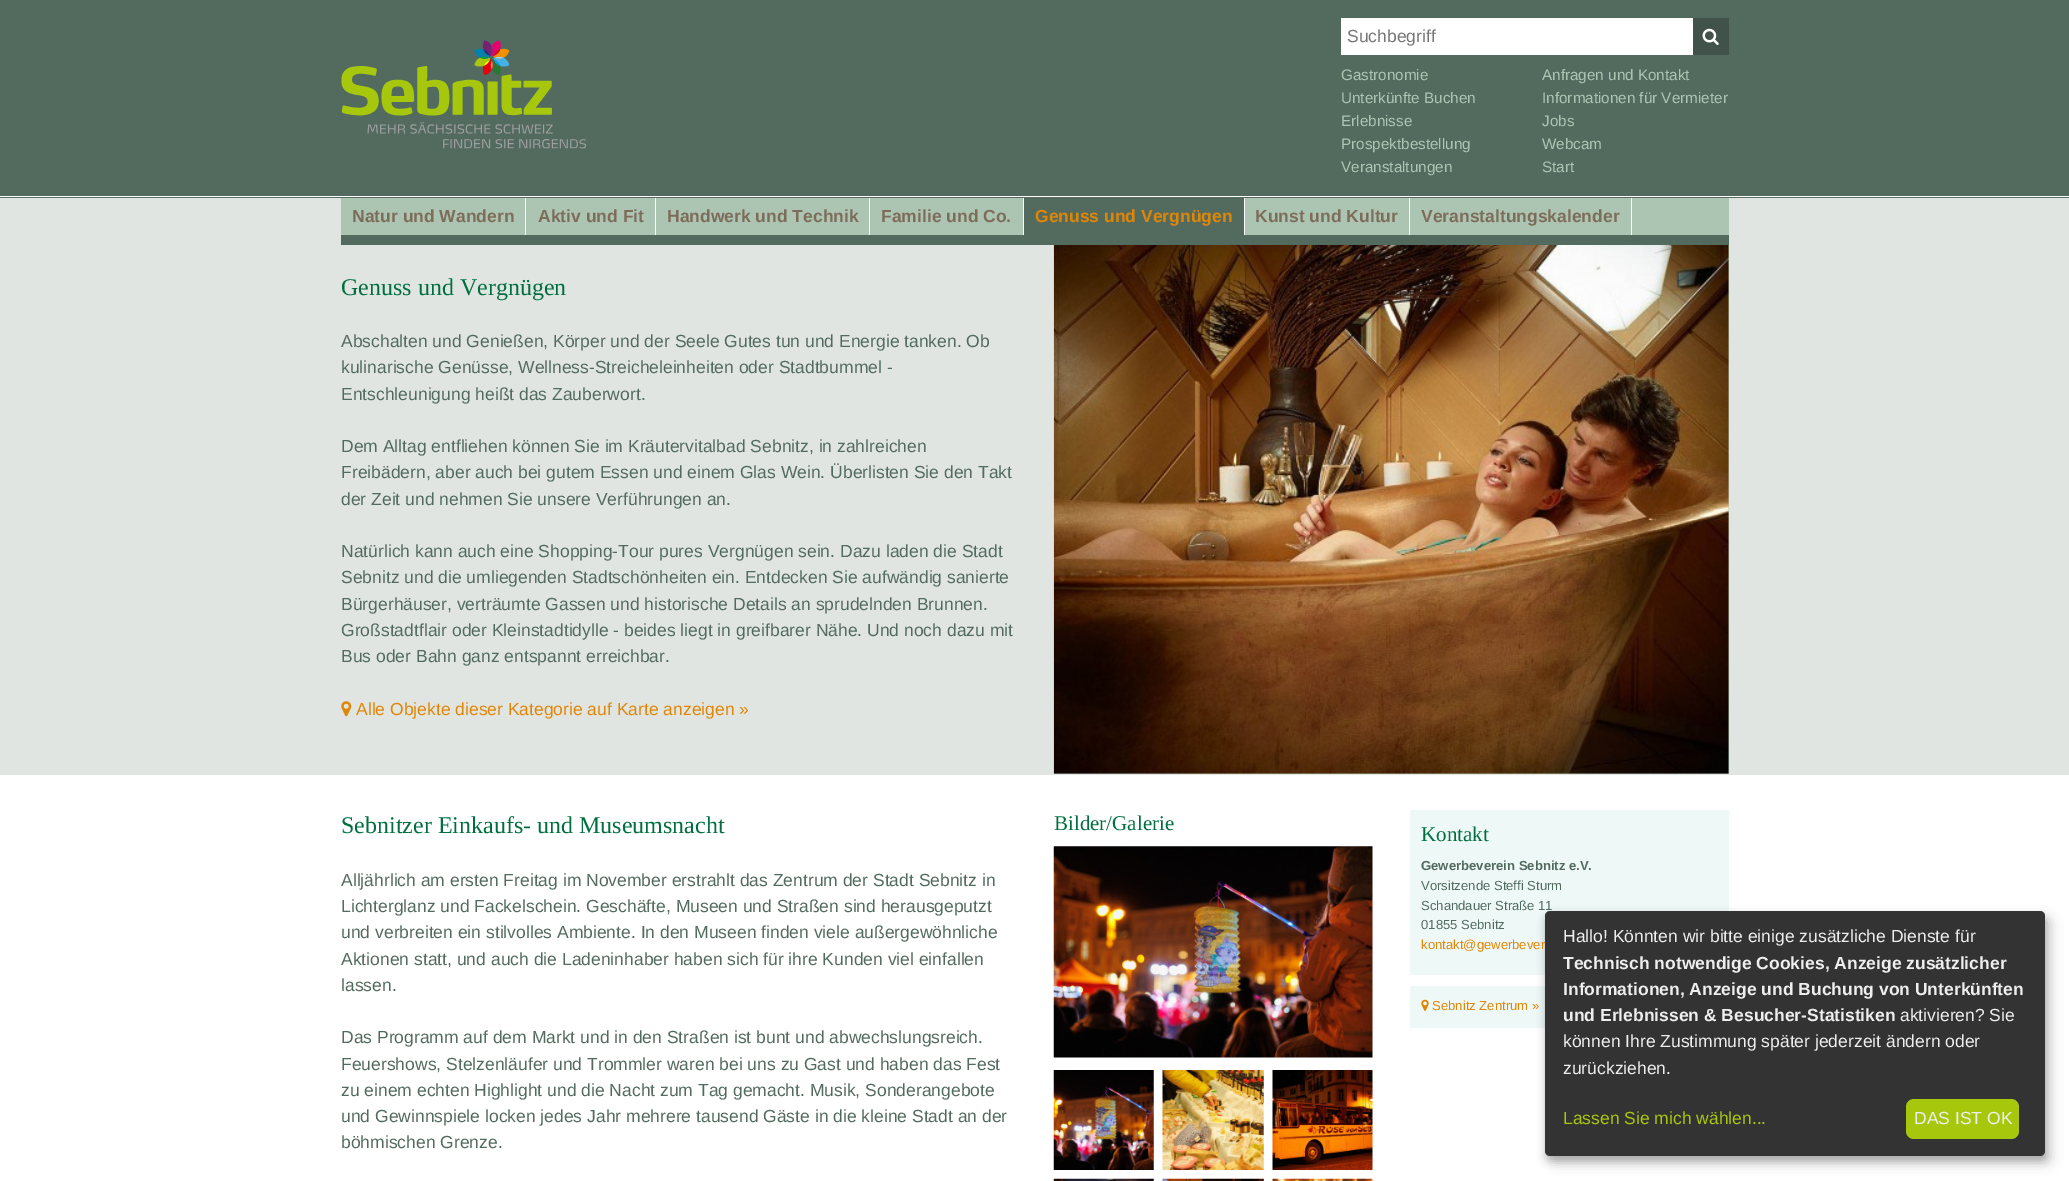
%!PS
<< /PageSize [2069 1181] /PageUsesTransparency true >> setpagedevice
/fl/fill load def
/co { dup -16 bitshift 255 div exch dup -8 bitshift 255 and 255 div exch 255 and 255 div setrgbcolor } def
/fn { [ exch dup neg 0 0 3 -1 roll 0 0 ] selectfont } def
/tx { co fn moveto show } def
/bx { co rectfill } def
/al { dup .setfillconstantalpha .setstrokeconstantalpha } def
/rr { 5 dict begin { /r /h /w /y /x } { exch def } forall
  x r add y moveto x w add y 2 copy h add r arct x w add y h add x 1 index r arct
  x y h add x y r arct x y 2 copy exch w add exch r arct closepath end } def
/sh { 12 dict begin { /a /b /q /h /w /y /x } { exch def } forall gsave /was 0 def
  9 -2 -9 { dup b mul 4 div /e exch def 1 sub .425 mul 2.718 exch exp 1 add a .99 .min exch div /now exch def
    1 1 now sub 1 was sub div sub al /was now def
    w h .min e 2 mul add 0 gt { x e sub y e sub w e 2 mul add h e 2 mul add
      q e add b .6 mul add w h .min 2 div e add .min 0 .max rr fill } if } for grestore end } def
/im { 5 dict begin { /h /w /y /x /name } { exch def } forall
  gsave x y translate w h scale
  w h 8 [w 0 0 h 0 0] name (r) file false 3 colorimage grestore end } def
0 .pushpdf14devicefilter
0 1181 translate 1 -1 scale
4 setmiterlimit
0 0 2069 1181 16#536B5F bx
0 196 2069 1 16#FFFFFF bx
(media/1.raw) 341 40 245 109 im
1341 18 352 37 16#FFFFFF bx
1693 18 36 37 16#405249 bx
(media/2.raw) 1702 28 17 17 im
0 198 2069 577 16#E0E5E1 bx
341 198 1388 37 16#ACC5B3 bx
341 235 1388 10 16#536B5F bx
525 198 1 37 16#FFFFFF bx
655 198 1 37 16#FFFFFF bx
869 198 1 37 16#FFFFFF bx
1023 198 1 37 16#FFFFFF bx
1244 198 1 37 16#FFFFFF bx
1024 198 220 37 16#536B5F bx
1409 198 1 37 16#FFFFFF bx
1631 198 1 37 16#FFFFFF bx
0 775 2069 406 16#FFFFFF bx
(media/3.raw) 341 701 11 16 im
1054 245 675 529 16#ACC5B3 bx
(media/4.raw) 1053 245 676 529 im
(media/5.raw) 1053 846 320 212 im
(media/6.raw) 1053 1070 101 100 im
(media/7.raw) 1162 1070 102 100 im
(media/8.raw) 1272 1070 101 100 im
(media/9.raw) 1053 1178 101 3 im
(media/10.raw) 1162 1178 102 3 im
(media/11.raw) 1272 1178 101 3 im
1410 810 319 165 16#EEF8F7 bx
1410 986 135 42 16#EEF8F7 bx
(media/12.raw) 1421 999 8 12 im
16#000000 co
1551 918 500 245 5 6 .19 sh
1545 916 500 245 5 4 .2 sh
16#333333 co
1545 911 500 245 5 rr fl
16#A7C70D co
1906 1099 113 40 8 rr fl
(Suchbegriff) 1347 42 /LiberationSans-Regular 17.5 16#757575 tx
(Gastronomie) 1341 80 /LiberationSans-Regular 15.25 16#ACC5B3 tx
(Anfragen und Kontakt) 1542 80 /LiberationSans-Regular 15.25 16#ACC5B3 tx
(Unterkünfte Buchen) 1341 103 /LiberationSans-Regular 15.25 16#ACC5B3 tx
(Informationen für Vermieter) 1542 103 /LiberationSans-Regular 15.25 16#ACC5B3 tx
(Erlebnisse) 1341 126 /LiberationSans-Regular 15.25 16#ACC5B3 tx
(Jobs) 1542 126 /LiberationSans-Regular 15.25 16#ACC5B3 tx
(Prospektbestellung) 1341 149 /LiberationSans-Regular 15.25 16#ACC5B3 tx
(Webcam) 1542 149 /LiberationSans-Regular 15.25 16#ACC5B3 tx
(Veranstaltungen) 1341 172 /LiberationSans-Regular 15.25 16#ACC5B3 tx
(Start) 1542 172 /LiberationSans-Regular 15.25 16#ACC5B3 tx
(Natur und Wandern) 352 222 /LiberationSans-Bold 17.5 16#7E6C5A tx
(Aktiv und Fit) 538 222 /LiberationSans-Bold 17.5 16#7E6C5A tx
(Handwerk und Technik) 667 222 /LiberationSans-Bold 17.5 16#7E6C5A tx
(Familie und Co.) 881 222 /LiberationSans-Bold 17.5 16#7E6C5A tx
(Genuss und Vergnügen) 1035 222 /LiberationSans-Bold 17.5 16#E08606 tx
(Kunst und Kultur) 1255 222 /LiberationSans-Bold 17.5 16#7E6C5A tx
(Veranstaltungskalender) 1421 222 /LiberationSans-Bold 17.5 16#7E6C5A tx
(Genuss und Vergnügen) 341 295 /LiberationSerif-Regular 24 16#006F3F tx
(Abschalten und Genießen, Körper und der Seele Gutes tun und Energie tanken. Ob) 341 347 /LiberationSans-Regular 17.5 16#536B5F tx
(kulinarische Genüsse, Wellness-Streicheleinheiten oder Stadtbummel -) 341 373 /LiberationSans-Regular 17.5 16#536B5F tx
(Entschleunigung heißt das Zauberwort.) 341 400 /LiberationSans-Regular 17.5 16#536B5F tx
(Dem Alltag entfliehen können Sie im Kräutervitalbad Sebnitz, in zahlreichen) 341 452 /LiberationSans-Regular 17.5 16#536B5F tx
(Freibädern, aber auch bei gutem Essen und einem Glas Wein. Überlisten Sie den Takt) 341 478 /LiberationSans-Regular 17.5 16#536B5F tx
(der Zeit und nehmen Sie unsere Verführungen an.) 341 505 /LiberationSans-Regular 17.5 16#536B5F tx
(Natürlich kann auch eine Shopping-Tour pures Vergnügen sein. Dazu laden die Stadt) 341 557 /LiberationSans-Regular 17.5 16#536B5F tx
(Sebnitz und die umliegenden Stadtschönheiten ein. Entdecken Sie aufwändig sanierte) 341 583 /LiberationSans-Regular 17.5 16#536B5F tx
(Bürgerhäuser, verträumte Gassen und historische Details an sprudelnden Brunnen.) 341 610 /LiberationSans-Regular 17.5 16#536B5F tx
(Großstadtflair oder Kleinstadtidylle - beides liegt in greifbarer Nähe. Und noch dazu mit) 341 636 /LiberationSans-Regular 17.5 16#536B5F tx
(Bus oder Bahn ganz entspannt erreichbar.) 341 662 /LiberationSans-Regular 17.5 16#536B5F tx
(Alle Objekte dieser Kategorie auf Karte anzeigen ») 356 715 /LiberationSans-Regular 17.5 16#E08606 tx
(Sebnitzer Einkaufs- und Museumsnacht) 341 833 /LiberationSerif-Regular 24 16#006F3F tx
(Alljährlich am ersten Freitag im November erstrahlt das Zentrum der Stadt Sebnitz in) 341 886 /LiberationSans-Regular 17.5 16#536B5F tx
(Lichterglanz und Fackelschein. Geschäfte, Museen und Straßen sind herausgeputzt) 341 912 /LiberationSans-Regular 17.5 16#536B5F tx
(und verbreiten ein stilvolles Ambiente. In den Museen finden viele außergewöhnliche) 341 938 /LiberationSans-Regular 17.5 16#536B5F tx
(Aktionen statt, und auch die Ladeninhaber haben sich für ihre Kunden viel einfallen) 341 965 /LiberationSans-Regular 17.5 16#536B5F tx
(lassen.) 341 991 /LiberationSans-Regular 17.5 16#536B5F tx
(Das Programm auf dem Markt und in den Straßen ist bunt und abwechslungsreich.) 341 1043 /LiberationSans-Regular 17.5 16#536B5F tx
(Feuershows, Stelzenläufer und Trommler waren bei uns zu Gast und haben das Fest) 341 1070 /LiberationSans-Regular 17.5 16#536B5F tx
(zu einem echten Highlight und die Nacht zum Tag gemacht. Musik, Sonderangebote) 341 1096 /LiberationSans-Regular 17.5 16#536B5F tx
(und Gewinnspiele locken jedes Jahr mehrere tausend Gäste in die kleine Stadt an der) 341 1122 /LiberationSans-Regular 17.5 16#536B5F tx
(böhmischen Grenze.) 341 1148 /LiberationSans-Regular 17.5 16#536B5F tx
(Bilder/Galerie) 1054 830 /LiberationSerif-Regular 21 16#006F3F tx
(Kontakt) 1421 841 /LiberationSerif-Regular 21 16#006F3F tx
(Gewerbeverein Sebnitz e.V.) 1421 870 /LiberationSans-Bold 13.1 16#536B5F tx
(Vorsitzende Steffi Sturm) 1421 890 /LiberationSans-Regular 13.1 16#536B5F tx
(Schandauer Straße 11) 1421 910 /LiberationSans-Regular 13.1 16#536B5F tx
(01855 Sebnitz) 1421 929 /LiberationSans-Regular 13.1 16#536B5F tx
(kontakt@gewerbever) 1421 949 /LiberationSans-Regular 13.1 16#E08606 tx
(Sebnitz Zentrum ») 1432 1010 /LiberationSans-Regular 13.1 16#E08606 tx
(Hallo! Könnten wir bitte einige zusätzliche Dienste für) 1563 942 /LiberationSans-Regular 17.5 16#EEEEEE tx
(Technisch notwendige Cookies, Anzeige zusätzlicher) 1563 969 /LiberationSans-Bold 17.5 16#EEEEEE tx
(Informationen, Anzeige und Buchung von Unterkünften) 1563 995 /LiberationSans-Bold 17.5 16#EEEEEE tx
(und Erlebnissen & Besucher-Statistiken) 1563 1021 /LiberationSans-Bold 17.5 16#EEEEEE tx
(aktivieren? Sie) 1900 1021 /LiberationSans-Regular 17.5 16#EEEEEE tx
(können Ihre Zustimmung später jederzeit ändern oder) 1563 1047 /LiberationSans-Regular 17.5 16#EEEEEE tx
(zurückziehen.) 1563 1074 /LiberationSans-Regular 17.5 16#EEEEEE tx
(Lassen Sie mich wählen...) 1563 1124 /LiberationSans-Regular 17.5 16#A7C70D tx
(DAS IST OK) 1914 1124 /LiberationSans-Regular 17.5 16#EEEEEE tx
.poppdf14devicefilter showpage
